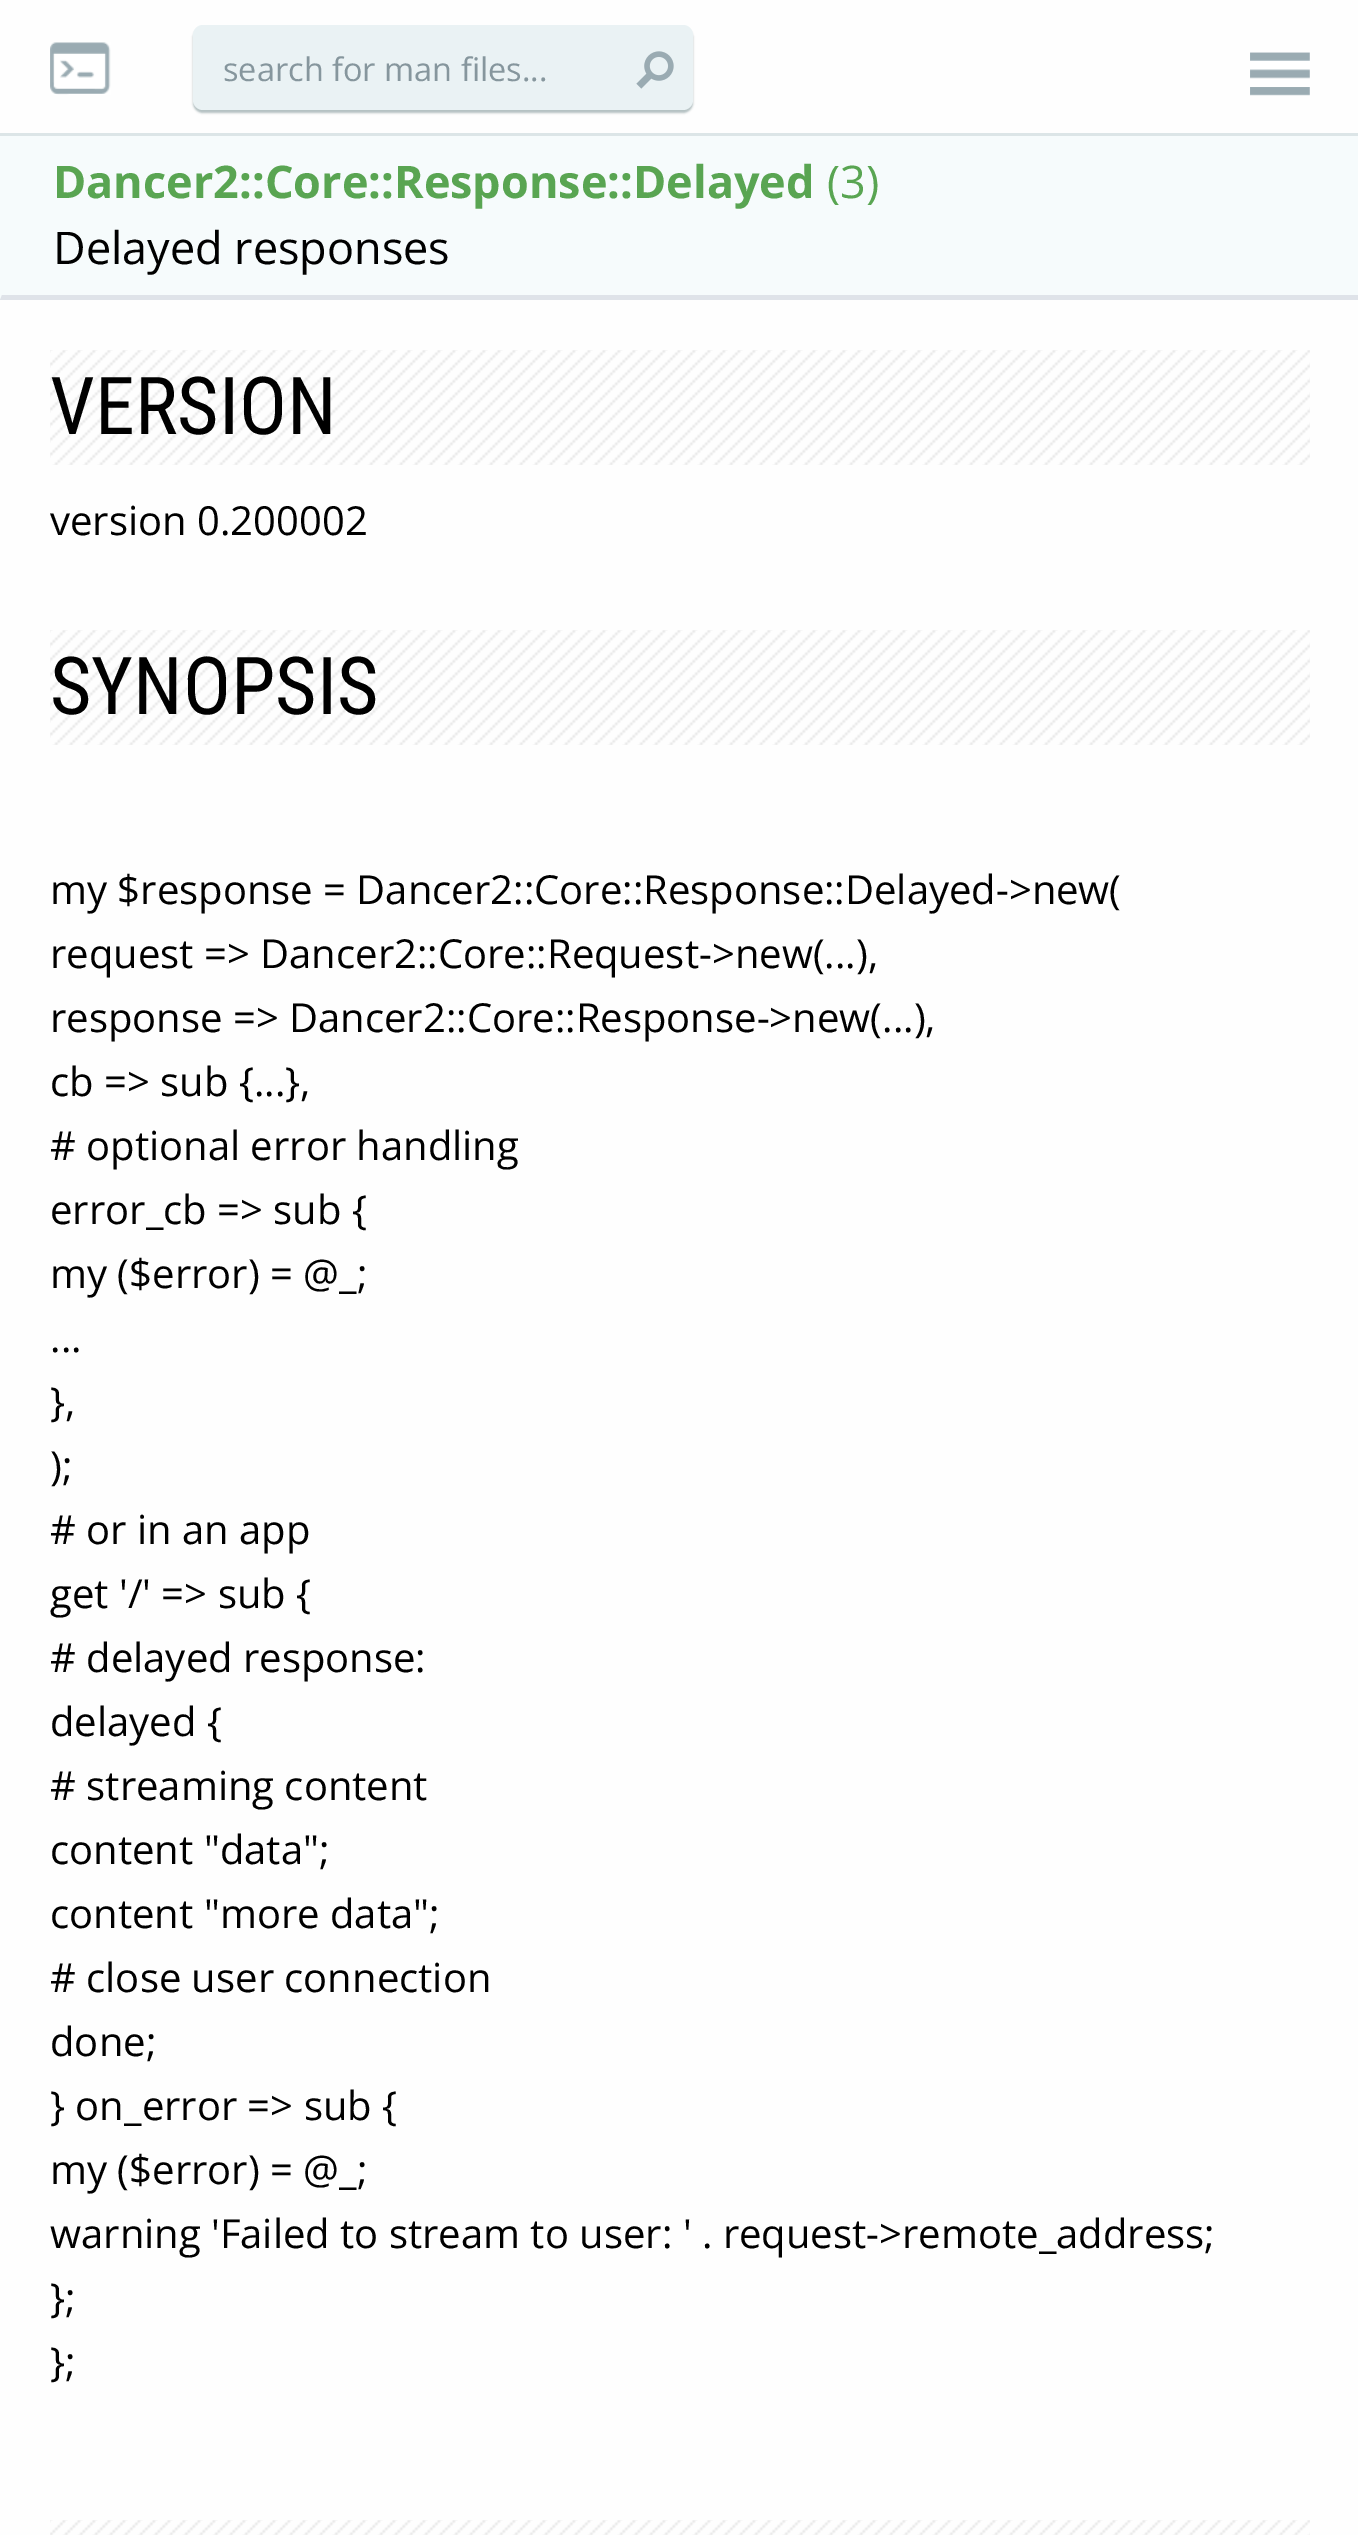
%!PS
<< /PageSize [1358 2535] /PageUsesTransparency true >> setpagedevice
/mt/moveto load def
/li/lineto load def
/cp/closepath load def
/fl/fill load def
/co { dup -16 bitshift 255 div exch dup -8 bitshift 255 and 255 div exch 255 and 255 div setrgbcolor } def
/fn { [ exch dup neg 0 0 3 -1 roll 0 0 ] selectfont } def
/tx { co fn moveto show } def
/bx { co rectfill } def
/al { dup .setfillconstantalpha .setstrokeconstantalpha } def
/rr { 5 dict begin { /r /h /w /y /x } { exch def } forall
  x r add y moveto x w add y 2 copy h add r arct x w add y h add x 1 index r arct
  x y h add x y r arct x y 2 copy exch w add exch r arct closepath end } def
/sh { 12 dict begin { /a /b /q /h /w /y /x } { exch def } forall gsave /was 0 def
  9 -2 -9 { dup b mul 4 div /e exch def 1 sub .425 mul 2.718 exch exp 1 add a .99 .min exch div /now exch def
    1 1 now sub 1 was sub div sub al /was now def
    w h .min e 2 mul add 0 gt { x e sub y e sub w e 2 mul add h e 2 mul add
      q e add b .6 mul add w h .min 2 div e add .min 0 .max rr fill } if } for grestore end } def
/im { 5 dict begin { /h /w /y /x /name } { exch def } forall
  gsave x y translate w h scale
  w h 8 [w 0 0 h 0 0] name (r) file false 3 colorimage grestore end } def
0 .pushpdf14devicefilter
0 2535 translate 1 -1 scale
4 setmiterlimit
0 0 1358 2535 16#FEFEFE bx
0 133 1358 3 16#DCE5E7 bx
(media/1.raw) 50 42 61 53 im
16#062F37 co
193 28 500 85 10 1 .3 sh
16#EAF2F4 co
193 25 500 85 10 rr fl
(media/2.raw) 636 51 38 38 im
(media/3.raw) 1250 52 60 44 im
0 136 1358 164 16#F6FBFC bx
16#DFE3E9 co
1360 300 mt 0 300 li 2 295 li 1358 295 li cp fl
(media/4.raw) 50 350 1260 115 im
(media/4.raw) 50 630 1260 115 im
(media/5.raw) 50 2520 1260 15 im
(search for man files...) 223 81 /OpenSans-Regular 32.5 16#86969D tx
(Dancer2::Core::Response::Delayed) 53 198 /OpenSans-Bold 45 16#59A552 tx
(\(3\)) 827 198 /OpenSans-Regular 45 16#59A552 tx
(Delayed responses) 53 264 /OpenSans-Regular 45 16#000000 tx
(VERSION) 50 434 /RobotoCondensed-Regular 80 16#000000 tx
(version 0.200002) 50 535 /OpenSans-Regular 40 16#000000 tx
(SYNOPSIS) 50 714 /RobotoCondensed-Regular 80 16#000000 tx
(my $response = Dancer2::Core::Response::Delayed->new\() 50 904 /OpenSans-Regular 40 16#000000 tx
(request => Dancer2::Core::Request->new\(...\),) 50 968 /OpenSans-Regular 40 16#000000 tx
(response => Dancer2::Core::Response->new\(...\),) 50 1032 /OpenSans-Regular 40 16#000000 tx
(cb => sub {...},) 50 1096 /OpenSans-Regular 40 16#000000 tx
(# optional error handling) 50 1160 /OpenSans-Regular 40 16#000000 tx
(error_cb => sub {) 50 1224 /OpenSans-Regular 40 16#000000 tx
(my \($error\) = @_;) 50 1288 /OpenSans-Regular 40 16#000000 tx
(...) 50 1352 /OpenSans-Regular 40 16#000000 tx
(},) 50 1416 /OpenSans-Regular 40 16#000000 tx
(\);) 50 1480 /OpenSans-Regular 40 16#000000 tx
(# or in an app) 50 1544 /OpenSans-Regular 40 16#000000 tx
(get '/' => sub {) 50 1608 /OpenSans-Regular 40 16#000000 tx
(# delayed response:) 50 1672 /OpenSans-Regular 40 16#000000 tx
(delayed {) 50 1736 /OpenSans-Regular 40 16#000000 tx
(# streaming content) 50 1800 /OpenSans-Regular 40 16#000000 tx
(content "data";) 50 1864 /OpenSans-Regular 40 16#000000 tx
(content "more data";) 50 1928 /OpenSans-Regular 40 16#000000 tx
(# close user connection) 50 1992 /OpenSans-Regular 40 16#000000 tx
(done;) 50 2056 /OpenSans-Regular 40 16#000000 tx
(} on_error => sub {) 50 2120 /OpenSans-Regular 40 16#000000 tx
(my \($error\) = @_;) 50 2184 /OpenSans-Regular 40 16#000000 tx
(warning 'Failed to stream to user: ' . request->remote_address;) 50 2248 /OpenSans-Regular 40 16#000000 tx
(};) 50 2312 /OpenSans-Regular 40 16#000000 tx
(};) 50 2376 /OpenSans-Regular 40 16#000000 tx
.poppdf14devicefilter showpage
